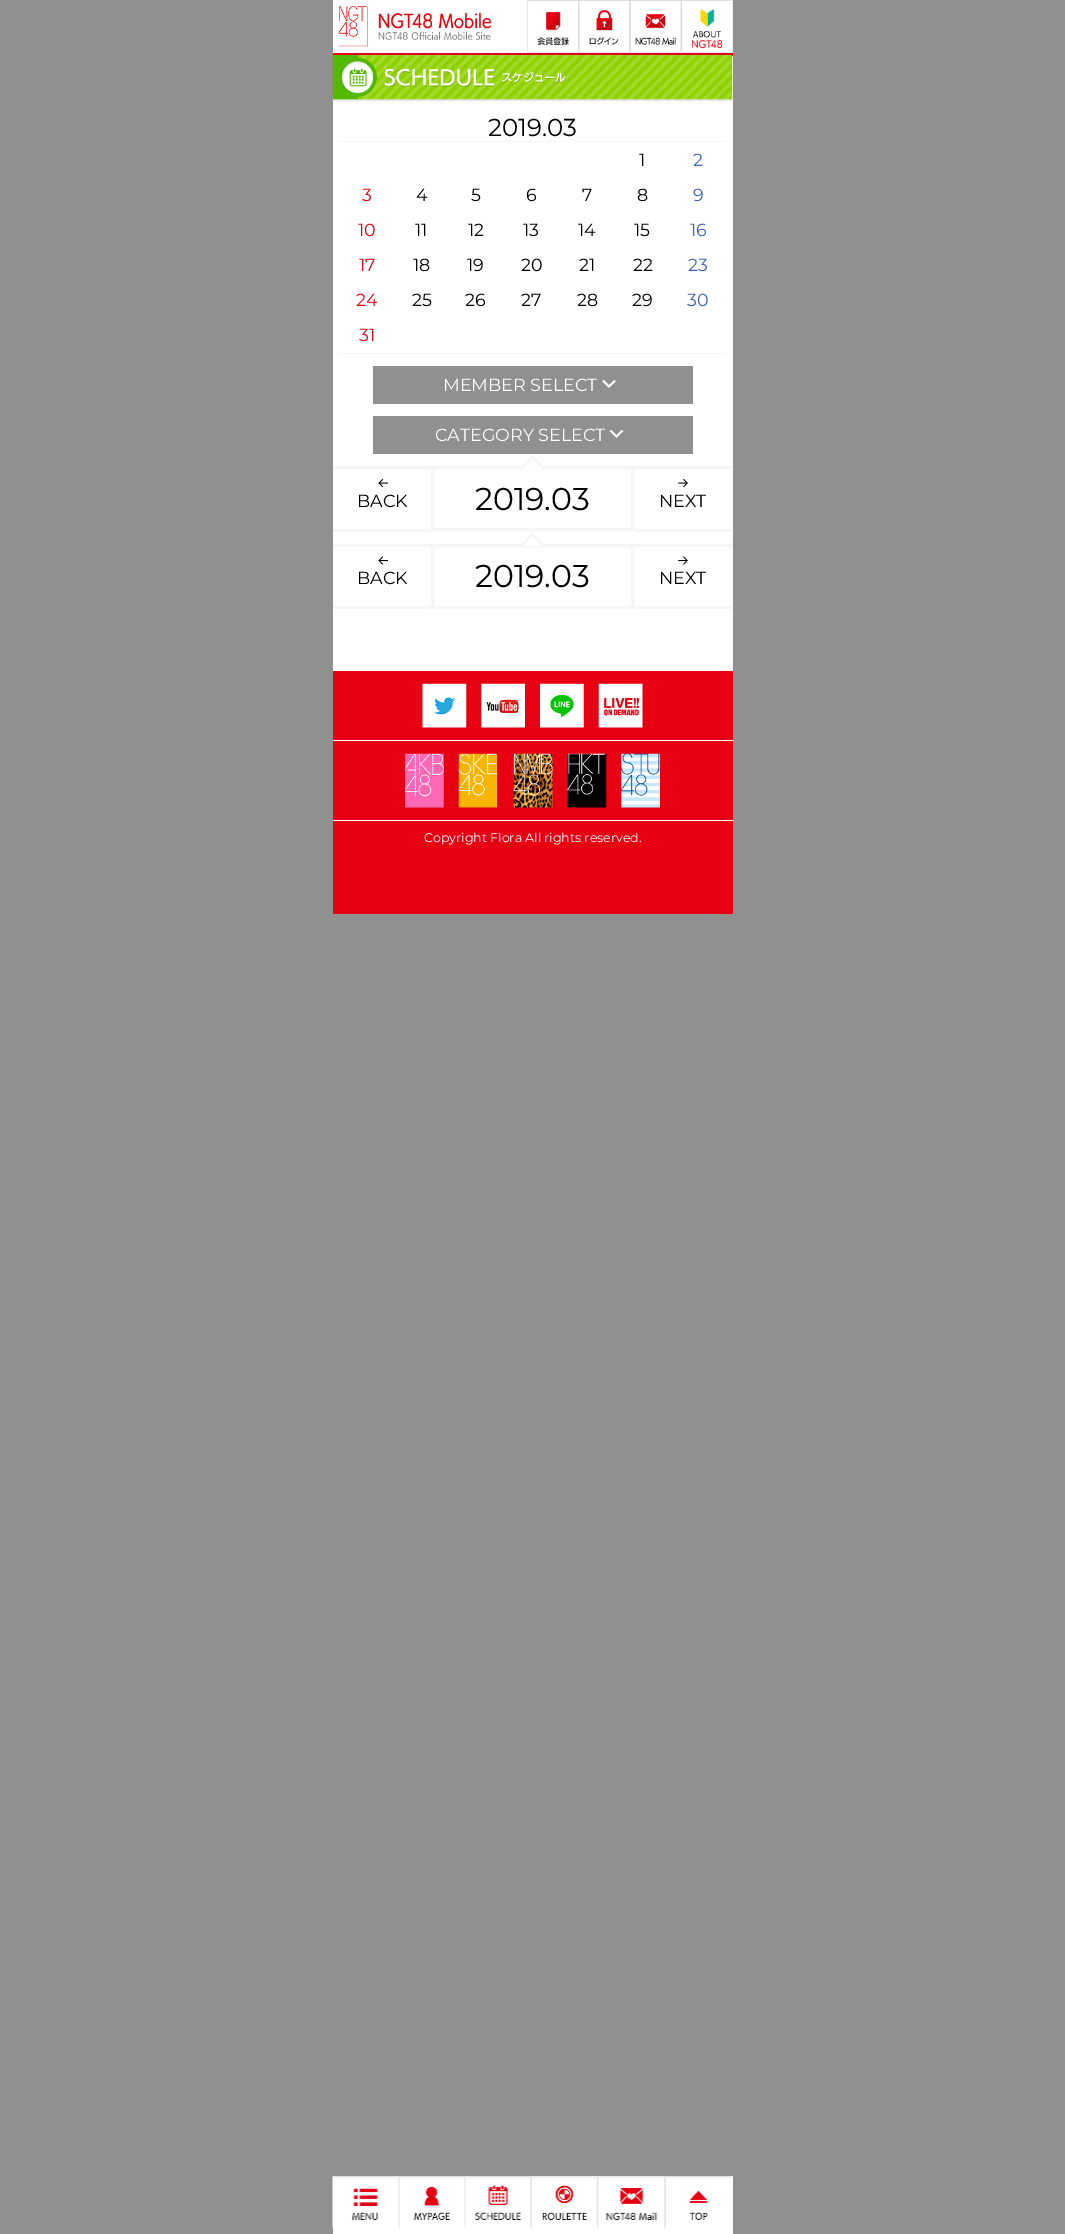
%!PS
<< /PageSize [1065 2234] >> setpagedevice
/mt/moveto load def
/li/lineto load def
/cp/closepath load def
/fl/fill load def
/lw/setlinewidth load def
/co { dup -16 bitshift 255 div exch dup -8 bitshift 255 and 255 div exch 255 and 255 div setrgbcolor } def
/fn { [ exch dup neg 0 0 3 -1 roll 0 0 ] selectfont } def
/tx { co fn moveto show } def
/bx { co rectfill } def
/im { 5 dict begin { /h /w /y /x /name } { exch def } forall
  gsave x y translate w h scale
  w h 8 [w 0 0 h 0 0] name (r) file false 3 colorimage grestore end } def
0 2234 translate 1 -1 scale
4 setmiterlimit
0 0 1065 2234 16#909090 bx
333 0 400 671 16#FFFFFF bx
333 53 400 3 16#E60012 bx
(media/1.raw) 338 6 30 41 im
(media/2.raw) 378 12 114 28 im
(media/3.raw) 527 0 52 53 im
(media/4.raw) 579 0 51 53 im
(media/5.raw) 630 0 52 53 im
(media/6.raw) 681 0 52 53 im
(media/7.raw) 332 55 401 47 im
339 353 387 1 16#F6F6F6 bx
339 141 387 1 16#F6F6F6 bx
373 366 320 38 16#909090 bx
(media/8.raw) 602 379 14 9 im
373 416 320 38 16#909090 bx
(media/9.raw) 609 429 15 9 im
333 466 98 3 16#F6F6F6 bx
333 529 98 3 16#F6F6F6 bx
(media/10.raw) 378 478 10 10 im
3 lw
432.5 467.5 200 62 rectstroke
546 469 mt 519 469 li 532.5 455 li cp fl
16#FFFFFF co
542.5 469 mt 522.5 469 li 532.5 459 li cp fl
634 466 99 3 16#F6F6F6 bx
634 529 99 3 16#F6F6F6 bx
(media/11.raw) 678 478 10 10 im
333 544 98 3 16#F6F6F6 bx
333 606 98 3 16#F6F6F6 bx
(media/12.raw) 378 556 10 9 im
432.5 545.5 200 62 rectstroke
546 546 mt 519 546 li 532.5 532.5 li cp fl
16#FFFFFF co
542.5 546 mt 522.5 546 li 532.5 536 li cp fl
634 544 99 3 16#F6F6F6 bx
634 606 99 3 16#F6F6F6 bx
(media/13.raw) 678 556 10 9 im
333 671 400 243 16#E60012 bx
(media/14.raw) 422 683 45 45 im
(media/15.raw) 481 683 44 45 im
(media/16.raw) 540 683 44 45 im
(media/17.raw) 598 683 45 45 im
333 740 400 1 16#FFFFFF bx
333 820 400 1 16#FFFFFF bx
(media/18.raw) 405 753 39 55 im
(media/19.raw) 458 753 40 55 im
(media/20.raw) 513 753 40 55 im
(media/21.raw) 567 753 40 55 im
(media/22.raw) 621 753 39 55 im
333 2176 400 58 16#FFFFFF bx
(media/23.raw) 332 2176 68 52 im
(media/24.raw) 398 2176 68 52 im
(media/25.raw) 464 2176 68 52 im
(media/26.raw) 530 2176 68 52 im
(media/27.raw) 597 2176 69 52 im
(media/28.raw) 664 2176 68 52 im
(2019.03) 488 136 /Montserrat-Regular 24.5 16#000000 tx
(1) 639 166 /Montserrat-Regular 17.5 16#000000 tx
(2) 693 166 /Montserrat-Regular 17.5 16#3B60C0 tx
(3) 362 201 /Montserrat-Regular 17.5 16#E60012 tx
(4) 416 201 /Montserrat-Regular 17.5 16#000000 tx
(5) 471 201 /Montserrat-Regular 17.5 16#000000 tx
(6) 526 201 /Montserrat-Regular 17.5 16#000000 tx
(7) 582 201 /Montserrat-Regular 17.5 16#000000 tx
(8) 637 201 /Montserrat-Regular 17.5 16#000000 tx
(9) 693 201 /Montserrat-Regular 17.5 16#3B60C0 tx
(10) 358 236 /Montserrat-Regular 17.5 16#E60012 tx
(11) 415 236 /Montserrat-Regular 17.5 16#000000 tx
(12) 468 236 /Montserrat-Regular 17.5 16#000000 tx
(13) 523 236 /Montserrat-Regular 17.5 16#000000 tx
(14) 578 236 /Montserrat-Regular 17.5 16#000000 tx
(15) 634 236 /Montserrat-Regular 17.5 16#000000 tx
(16) 690 236 /Montserrat-Regular 17.5 16#3B60C0 tx
(17) 359 271 /Montserrat-Regular 17.5 16#E60012 tx
(18) 413 271 /Montserrat-Regular 17.5 16#000000 tx
(19) 467 271 /Montserrat-Regular 17.5 16#000000 tx
(20) 521 271 /Montserrat-Regular 17.5 16#000000 tx
(21) 579 271 /Montserrat-Regular 17.5 16#000000 tx
(22) 633 271 /Montserrat-Regular 17.5 16#000000 tx
(23) 688 271 /Montserrat-Regular 17.5 16#3B60C0 tx
(24) 356 306 /Montserrat-Regular 17.5 16#E60012 tx
(25) 412 306 /Montserrat-Regular 17.5 16#000000 tx
(26) 465 306 /Montserrat-Regular 17.5 16#000000 tx
(27) 521 306 /Montserrat-Regular 17.5 16#000000 tx
(28) 577 306 /Montserrat-Regular 17.5 16#000000 tx
(29) 632 306 /Montserrat-Regular 17.5 16#000000 tx
(30) 687 306 /Montserrat-Regular 17.5 16#3B60C0 tx
(31) 359 341 /Montserrat-Regular 17.5 16#E60012 tx
(MEMBER SELECT) 443 391 /Montserrat-Regular 17.5 16#FFFFFF tx
(CATEGORY SELECT) 435 441 /Montserrat-Regular 17.5 16#FFFFFF tx
(BACK) 357 507 /Montserrat-Regular 17.5 16#000000 tx
(2019.03) 475 510 /Montserrat-Regular 31.5 16#000000 tx
(NEXT) 659 507 /Montserrat-Regular 17.5 16#000000 tx
(BACK) 357 584 /Montserrat-Regular 17.5 16#000000 tx
(2019.03) 475 587 /Montserrat-Regular 31.5 16#000000 tx
(NEXT) 659 584 /Montserrat-Regular 17.5 16#000000 tx
(Copyright Flora All rights reserved.) 424 842 /Montserrat-Regular 12.6 16#FFFFFF tx
showpage
